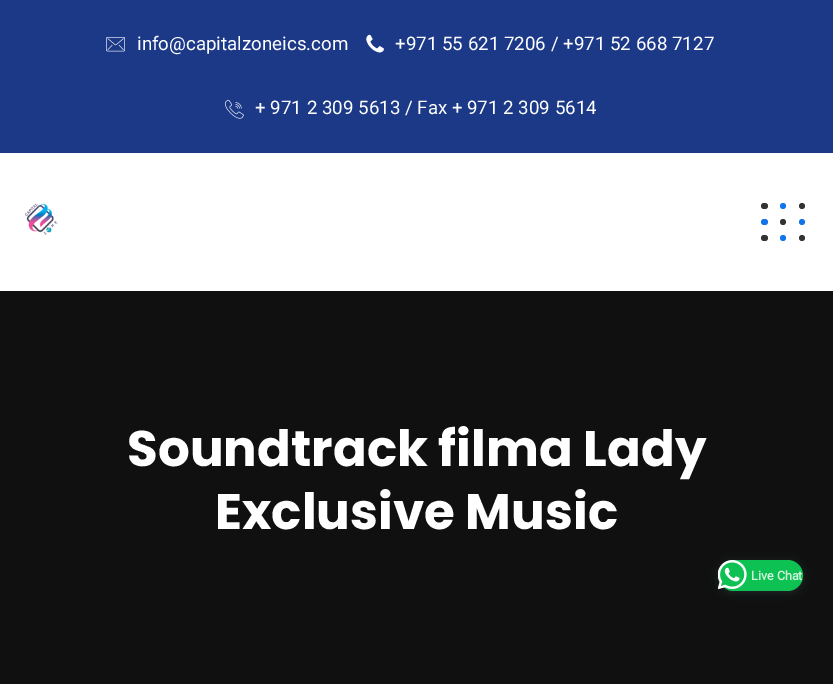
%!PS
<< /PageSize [833 684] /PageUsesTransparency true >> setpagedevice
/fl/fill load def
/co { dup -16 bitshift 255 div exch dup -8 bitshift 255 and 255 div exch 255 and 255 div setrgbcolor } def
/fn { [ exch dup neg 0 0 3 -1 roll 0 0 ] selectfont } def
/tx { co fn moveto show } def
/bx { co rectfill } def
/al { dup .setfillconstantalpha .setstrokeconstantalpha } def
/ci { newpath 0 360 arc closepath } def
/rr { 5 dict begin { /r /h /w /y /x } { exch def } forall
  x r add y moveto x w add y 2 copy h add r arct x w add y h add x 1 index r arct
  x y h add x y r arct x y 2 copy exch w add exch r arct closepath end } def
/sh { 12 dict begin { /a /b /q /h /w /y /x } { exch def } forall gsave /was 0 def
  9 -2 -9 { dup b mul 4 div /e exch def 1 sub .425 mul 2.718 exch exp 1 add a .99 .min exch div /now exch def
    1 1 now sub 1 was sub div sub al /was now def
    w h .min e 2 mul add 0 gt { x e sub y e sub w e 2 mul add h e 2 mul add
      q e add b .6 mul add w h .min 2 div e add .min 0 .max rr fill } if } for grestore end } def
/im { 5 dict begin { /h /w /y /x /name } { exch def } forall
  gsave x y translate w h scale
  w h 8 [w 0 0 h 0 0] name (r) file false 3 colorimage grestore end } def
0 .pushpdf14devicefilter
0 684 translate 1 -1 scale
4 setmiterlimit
0 0 833 684 16#101010 bx
0 0 833 153 16#1C3988 bx
(media/1.raw) 106 37 19 15 im
(media/2.raw) 366 34 18 19 im
(media/3.raw) 225 99 19 20 im
0 153 833 138 16#FFFFFF bx
(media/4.raw) 25 203 33 32 im
16#333333 co
761 203 7 6 3 rr fl
16#1273EB co
783 206 3 ci fl
16#333333 co
802 206 3 ci fl
16#1273EB co
761 219 7 6 3 rr fl
16#333333 co
783 222 3 ci fl
16#1273EB co
802 222 3 ci fl
16#333333 co
761 235 7 6 3 rr fl
16#1273EB co
783 238 3 ci fl
16#333333 co
802 238 3 ci fl
16#39494C co
718 561 85 32 16 4 .35 sh
16#0DC152 co
718 560 85 31 15.5 rr fl
(media/5.raw) 718 560 29 30 im
(info@capitalzoneics.com) 137 50 /Roboto-Regular 18.75 16#FFFFFF tx
(+971 55 621 7206 / +971 52 668 7127) 395 50 /Roboto-Regular 18.75 16#FFFFFF tx
(+ 971 2 309 5613 / Fax + 971 2 309 5614) 255 114 /Roboto-Regular 18.75 16#FFFFFF tx
(Soundtrack filma Lady) 127 466 /Poppins-Bold 50 16#FFFFFF tx
(Exclusive Music) 215 529 /Poppins-Bold 50 16#FFFFFF tx
(Live Chat) 751 580 /Roboto-Bold 12.5 16#CEF3DC tx
.poppdf14devicefilter showpage
